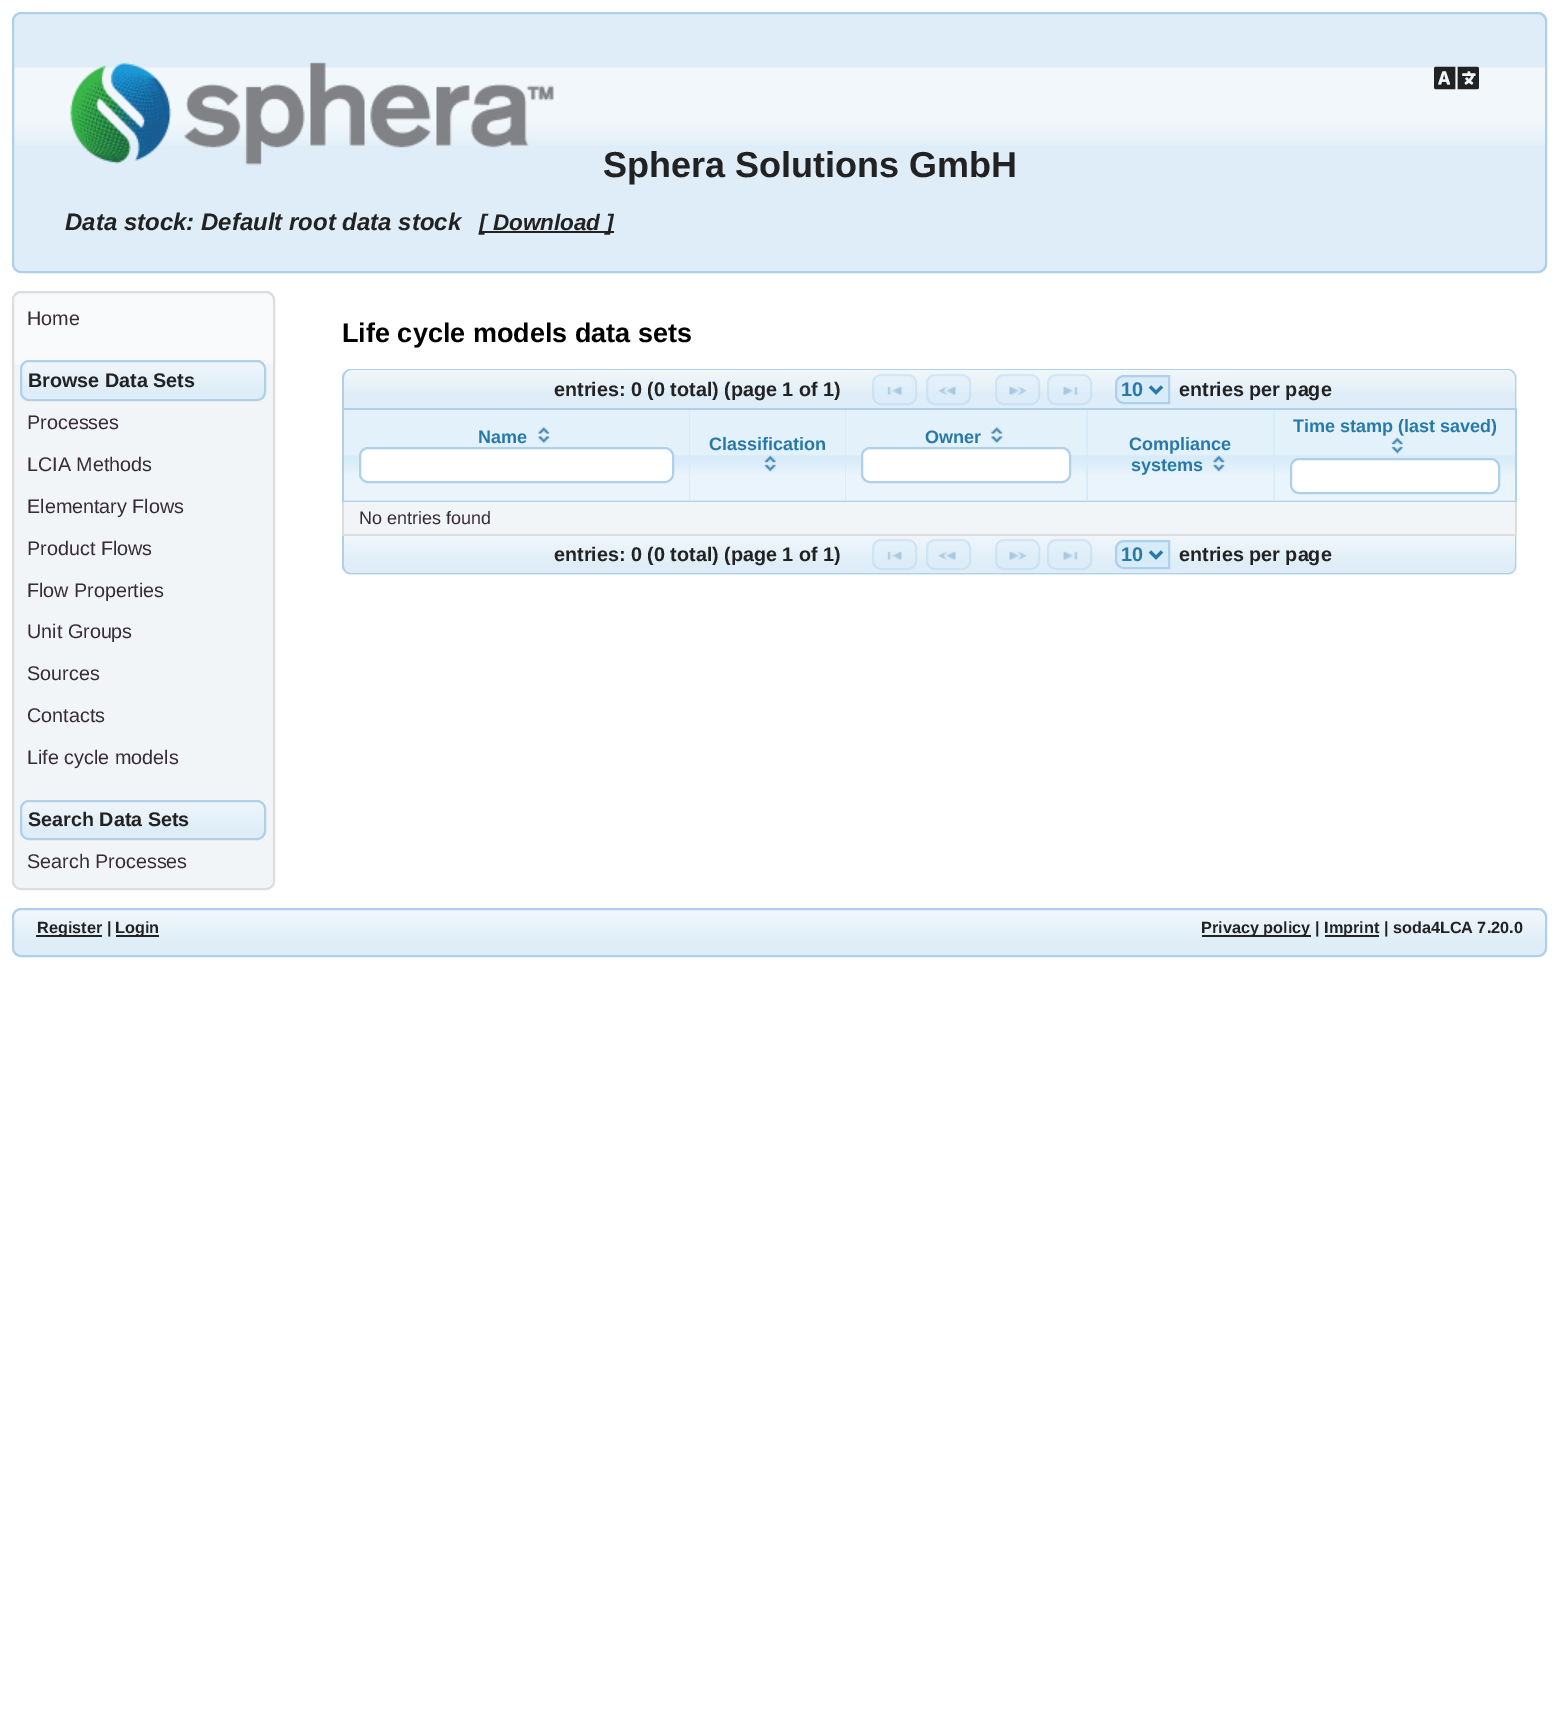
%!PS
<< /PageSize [1558 1726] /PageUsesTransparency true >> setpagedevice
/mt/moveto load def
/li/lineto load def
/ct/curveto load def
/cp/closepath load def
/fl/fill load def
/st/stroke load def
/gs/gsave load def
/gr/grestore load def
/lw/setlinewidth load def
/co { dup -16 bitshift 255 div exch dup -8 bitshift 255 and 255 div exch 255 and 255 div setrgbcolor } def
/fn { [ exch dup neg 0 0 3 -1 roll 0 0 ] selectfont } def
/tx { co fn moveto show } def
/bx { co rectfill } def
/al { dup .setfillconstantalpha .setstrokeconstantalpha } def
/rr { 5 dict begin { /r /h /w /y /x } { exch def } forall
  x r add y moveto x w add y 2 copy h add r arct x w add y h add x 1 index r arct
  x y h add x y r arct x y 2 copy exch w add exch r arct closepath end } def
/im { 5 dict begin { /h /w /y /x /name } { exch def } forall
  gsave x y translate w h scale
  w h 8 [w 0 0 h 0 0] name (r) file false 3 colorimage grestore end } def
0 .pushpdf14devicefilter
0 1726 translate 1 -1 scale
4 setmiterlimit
0 0 1558 1726 16#FFFFFF bx
16#DEEDF7 co
12 12 1535 261 9 rr fl
(media/1.raw) 14 67 1531 78 im
16#AED0EA co
2 lw
13 13 1533 259 8 rr st
(media/2.raw) 70 62 484 104 im
(media/3.raw) 1434 66 45 24 im
479 231 135 2 16#222222 bx
16#F2F5F7 co
12 291 263 599 9 rr fl
(media/4.raw) 12 293 262 71 im
16#DDDDDD co
13 292 261 597 8 rr st
16#DEEDF7 co
20 360 246 41 9 rr fl
(media/5.raw) 19 360 246 37 im
16#AED0EA co
21 361 244 39 8 rr st
(media/6.raw) 19 800 246 40 im
21 801 244 38 8 rr st
16#DEEDF7 co
351 369 mt 1508 369 li 1513 369 1517 373 1517 378 ct 1517 408 li 342 408 li 342 378 li 342 373 346 369 351 369 ct cp fl
(media/7.raw) 342 369 1174 23 im
16#AED0EA co
351 369 mt 1508 369 li 1512 369 1516 373 1516 378 ct 1516 408 li 342 408 li 342 378 li 342 373 346 369 351 369 ct cp 351 370 mt 1508 370 li 1512 370 1515 374 1515 378 ct 1515 408 li 344 408 li 344 378 li 344 374 347 370 351 370 ct cp eofill
0.35 al
16#D7EBF9 co
872 374 45 31 9 rr fl
16#AED0EA co
873 375 43 29 8 rr st
1 al
(media/8.raw) 887 386 15 9 im
0.35 al
16#D7EBF9 co
926 374 45 31 9 rr fl
16#AED0EA co
927 375 43 29 8 rr st
1 al
(media/9.raw) 938 386 18 9 im
0.35 al
16#D7EBF9 co
995 374 45 31 9 rr fl
16#AED0EA co
996 375 43 29 8 rr st
1 al
(media/10.raw) 1009 386 18 9 im
0.35 al
16#D7EBF9 co
1047 374 45 31 9 rr fl
16#AED0EA co
1048 375 43 29 8 rr st
1 al
(media/11.raw) 1063 386 15 9 im
16#D7EBF9 co
1124 376 mt 1169 376 li 1169 403 li 1124 403 li 1119.5 403 1116 399.5 1116 395 ct 1116 384 li 1116 379.5 1119.5 376 1124 376 ct cp gs fl gr
16#AED0EA co
st
16#2779AA co
3 lw
1150 386.5 mt 1156 392.5 li 1162 386.5 li st
342 408 1175 2 16#AED0EA bx
1515 500 2 36 16#DDDDDD bx
342 534 1175 2 16#DDDDDD bx
342 500 2 36 16#DDDDDD bx
342 408 2 93 16#AED0EA bx
344 410 502 91 16#D7EBF9 bx
(media/12.raw) 344 410 345 90 im
(media/13.raw) 538 427 12 16 im
16#FFFFFF co
360 448 313 34 8 rr gs fl gr
16#AED0EA co
2 lw
st
(media/14.raw) 690 410 155 90 im
(media/15.raw) 764 455 12 17 im
846 500 240 1 16#D7EBF9 bx
(media/16.raw) 846 410 240 90 im
(media/17.raw) 991 427 12 16 im
16#FFFFFF co
862 448 208 34 8 rr gs fl gr
16#AED0EA co
st
1515 408 2 93 16#AED0EA bx
1274 500 243 2 16#AED0EA bx
342 501 933 1 16#AED0EA bx
1086 410 429 91 16#D7EBF9 bx
(media/18.raw) 1088 410 186 90 im
(media/19.raw) 1213 455 12 17 im
(media/16.raw) 1275 410 240 90 im
(media/20.raw) 1391 437 12 17 im
16#FFFFFF co
1291 459 208 34 8 rr gs fl gr
16#AED0EA co
st
344 502 1171 32 16#F2F5F7 bx
16#DEEDF7 co
342 536 mt 1517 536 li 1517 566 li 1517 571 1513 575 1508 575 ct 351 575 li 346 575 342 571 342 566 ct cp fl
(media/21.raw) 342 536 1175 33 im
16#AED0EA co
342 536 mt 1516 536 li 1516 566 li 1516 570 1512 574 1508 574 ct 351 574 li 346 574 342 570 342 566 ct cp 344 536 mt 1515 536 li 1515 566 li 1515 570 1512 573 1508 573 ct 351 573 li 347 573 344 570 344 566 ct cp eofill
0.35 al
16#D7EBF9 co
872 539 45 31 9 rr fl
16#AED0EA co
873 540 43 29 8 rr st
1 al
(media/22.raw) 887 551 15 9 im
0.35 al
16#D7EBF9 co
926 539 45 31 9 rr fl
16#AED0EA co
927 540 43 29 8 rr st
1 al
(media/23.raw) 938 551 18 9 im
0.35 al
16#D7EBF9 co
995 539 45 31 9 rr fl
16#AED0EA co
996 540 43 29 8 rr st
1 al
(media/24.raw) 1009 551 18 9 im
0.35 al
16#D7EBF9 co
1047 539 45 31 9 rr fl
16#AED0EA co
1048 540 43 29 8 rr st
1 al
(media/25.raw) 1063 551 15 9 im
16#D7EBF9 co
1124 541 mt 1169 541 li 1169 568 li 1124 568 li 1119.5 568 1116 564.5 1116 560 ct 1116 549 li 1116 544.5 1119.5 541 1124 541 ct cp gs fl gr
16#AED0EA co
st
16#2779AA co
3 lw
1150 551.5 mt 1156 557.5 li 1162 551.5 li st
(media/26.raw) 12 908 1535 49 im
16#AED0EA co
2 lw
13 909 1533 47 8 rr st
36 935 66 2 16#222222 bx
116 935 43 2 16#222222 bx
1202 935 109 2 16#222222 bx
1325 935 54 2 16#222222 bx
(Sphera Solutions GmbH) 603 177 /LiberationSans-Bold 36 16#222222 tx
(Data stock: Default root data stock) 65 230 /LiberationSans-BoldItalic 24 16#222222 tx
([ Download ]) 479 230 /LiberationSans-BoldItalic 22.5 16#222222 tx
(Home) 27 325 /LiberationSans-Regular 19.75 16#362B36 tx
(Browse Data Sets) 28 387 /LiberationSans-Bold 19.75 16#222222 tx
(Processes) 27 429 /LiberationSans-Regular 19.75 16#362B36 tx
(LCIA Methods) 27 471 /LiberationSans-Regular 19.75 16#362B36 tx
(Elementary Flows) 27 513 /LiberationSans-Regular 19.75 16#362B36 tx
(Product Flows) 27 555 /LiberationSans-Regular 19.75 16#362B36 tx
(Flow Properties) 27 597 /LiberationSans-Regular 19.75 16#362B36 tx
(Unit Groups) 27 638 /LiberationSans-Regular 19.75 16#362B36 tx
(Sources) 27 680 /LiberationSans-Regular 19.75 16#362B36 tx
(Contacts) 27 722 /LiberationSans-Regular 19.75 16#362B36 tx
(Life cycle models) 27 764 /LiberationSans-Regular 19.75 16#362B36 tx
(Search Data Sets) 28 826 /LiberationSans-Bold 19.75 16#222222 tx
(Search Processes) 27 868 /LiberationSans-Regular 19.75 16#362B36 tx
(Life cycle models data sets) 342 342 /LiberationSans-Bold 27 16#000000 tx
(entries: 0 \(0 total\) \(page 1 of 1\)) 554 396 /LiberationSans-Bold 19.75 16#222222 tx
(10) 1121 396 /LiberationSans-Bold 19.75 16#2779AA tx
(entries per page) 1179 396 /LiberationSans-Bold 19.75 16#222222 tx
(Name) 478 443 /LiberationSans-Bold 18 16#2779AA tx
(Classification) 709 450 /LiberationSans-Bold 18 16#2779AA tx
(Owner) 925 443 /LiberationSans-Bold 18 16#2779AA tx
(Compliance) 1129 450 /LiberationSans-Bold 18 16#2779AA tx
(systems) 1131 471 /LiberationSans-Bold 18 16#2779AA tx
(Time stamp \(last saved\)) 1293 432 /LiberationSans-Bold 18 16#2779AA tx
(No entries found) 359 524 /LiberationSans-Regular 18 16#362B36 tx
(entries: 0 \(0 total\) \(page 1 of 1\)) 554 561 /LiberationSans-Bold 19.75 16#222222 tx
(10) 1121 561 /LiberationSans-Bold 19.75 16#2779AA tx
(entries per page) 1179 561 /LiberationSans-Bold 19.75 16#222222 tx
(Register |) 37 933 /LiberationSans-Bold 16.25 16#222222 tx
(Login) 115 933 /LiberationSans-Bold 16.25 16#222222 tx
(Privacy policy |) 1201 933 /LiberationSans-Bold 16.25 16#222222 tx
(Imprint | soda4LCA 7.20.0) 1324 933 /LiberationSans-Bold 16.25 16#222222 tx
.poppdf14devicefilter showpage
